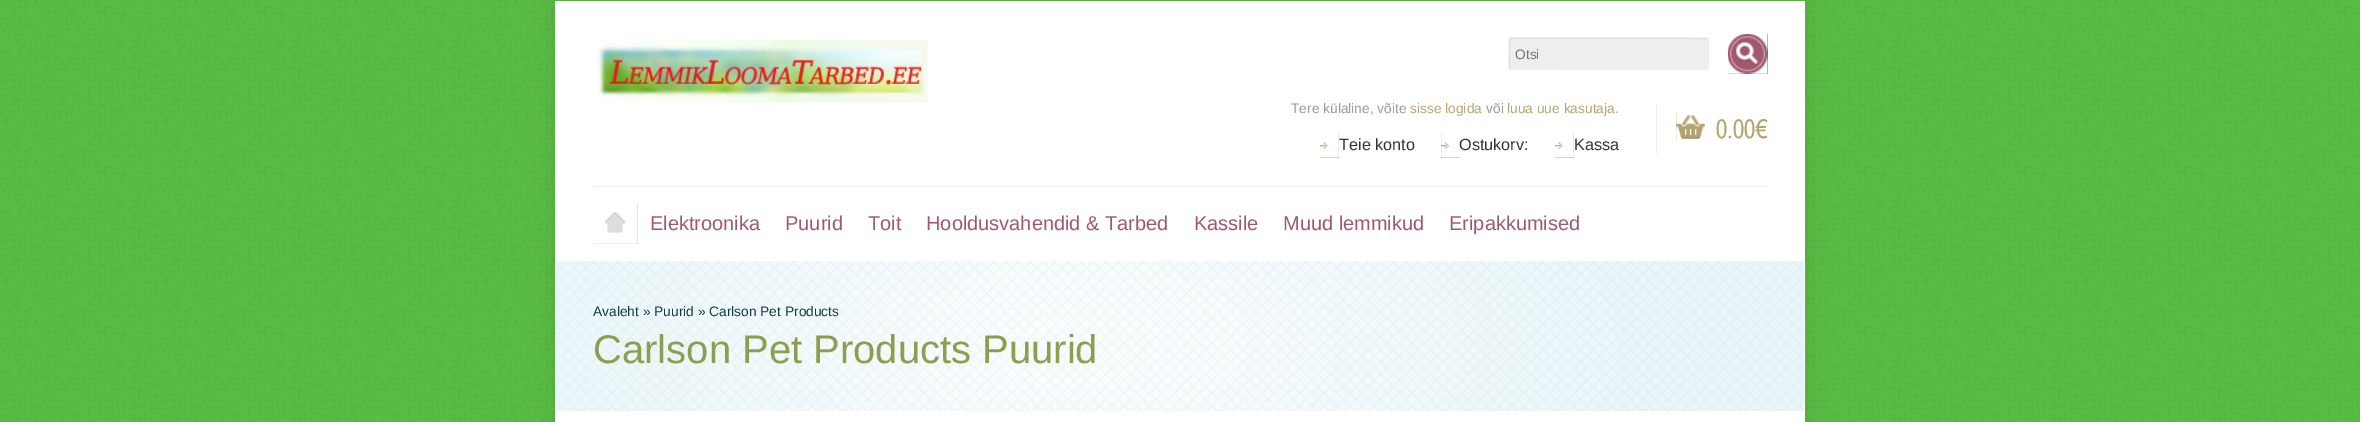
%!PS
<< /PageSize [2360 422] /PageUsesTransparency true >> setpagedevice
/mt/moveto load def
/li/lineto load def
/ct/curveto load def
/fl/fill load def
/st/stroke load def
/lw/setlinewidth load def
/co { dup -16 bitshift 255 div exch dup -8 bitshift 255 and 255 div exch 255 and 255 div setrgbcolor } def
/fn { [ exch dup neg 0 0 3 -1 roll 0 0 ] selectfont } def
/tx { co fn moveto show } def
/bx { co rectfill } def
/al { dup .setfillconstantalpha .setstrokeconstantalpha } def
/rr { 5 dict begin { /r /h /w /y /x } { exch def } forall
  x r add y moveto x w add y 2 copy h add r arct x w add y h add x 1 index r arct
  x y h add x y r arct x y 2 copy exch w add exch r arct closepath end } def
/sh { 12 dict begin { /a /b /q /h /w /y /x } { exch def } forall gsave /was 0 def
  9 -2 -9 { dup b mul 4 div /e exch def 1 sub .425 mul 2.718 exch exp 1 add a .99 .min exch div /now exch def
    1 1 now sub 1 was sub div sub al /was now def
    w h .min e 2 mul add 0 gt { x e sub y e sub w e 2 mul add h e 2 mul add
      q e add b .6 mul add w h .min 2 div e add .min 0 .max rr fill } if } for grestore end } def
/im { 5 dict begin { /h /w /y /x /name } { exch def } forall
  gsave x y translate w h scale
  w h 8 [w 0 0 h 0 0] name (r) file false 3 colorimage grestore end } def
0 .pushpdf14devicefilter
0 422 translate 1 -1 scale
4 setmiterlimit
0 0 2360 422 16#58BD44 bx
(media/1.raw) 0 0 2360 422 im
16#000000 co
555 1 1250 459 0 12.5 .1 sh
555 1 1250 421 16#FFFFFF bx
(media/2.raw) 597 40 331 63 im
16#EEEEEE co
1509 38 200 32 2.5 rr fl
1.2 lw
1707.5 38.5 mt 1709 40.5 1708 55.5 1708 58.5 ct 1708 63 li 1708 64 1709 69.5 1706 69.5 ct 1576 69.5 li 1510 69 li st
16#DDDDDD co
1510 69 mt 1508.5 67 1509.5 52 1509.5 49 ct 1509.5 44.5 li 1509.5 43.5 1508.5 38 1511 38 ct 1641 38 li 1707.5 38.5 li st
1728 34 40 40 16#A1576D bx
(media/3.raw) 1728 34 40 40 im
1656 104 1 50 16#EEEEEE bx
1676 113 29 28 16#B5A570 bx
(media/4.raw) 1676 113 29 28 im
1320 133 19 25 16#B5A570 bx
(media/5.raw) 1320 133 19 25 im
1441 133 19 25 16#B5A570 bx
(media/6.raw) 1441 133 19 25 im
1555 133 19 25 16#B5A570 bx
(media/7.raw) 1555 133 19 25 im
593 186 1175 1 16#EEEEEE bx
593 204 45 40 16#DDDDDD bx
(media/8.raw) 593 204 45 40 im
556 261 1248 150 16#E8F6FA bx
(media/9.raw) 556 261 1248 151 im
(Otsi) 1515 59 /LiberationSans-Regular 13.75 16#757575 tx
(Tere külaline, võite) 1291 113 /LiberationSans-Regular 13.75 16#999999 tx
(sisse logida) 1410 113 /LiberationSans-Regular 13.75 16#B5A570 tx
(või) 1486 113 /LiberationSans-Regular 13.75 16#999999 tx
(luua uue kasutaja) 1507 113 /LiberationSans-Regular 13.75 16#B5A570 tx
(.) 1615 113 /LiberationSans-Regular 13.75 16#999999 tx
(0.00€) 1716 138 /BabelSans-Medium 26 16#B5A570 tx
(Teie konto) 1339 150 /LiberationSans-Regular 16.25 16#333333 tx
(Ostukorv:) 1459 150 /LiberationSans-Regular 16.25 16#333333 tx
(Kassa) 1574 150 /LiberationSans-Regular 16.25 16#333333 tx
(Elektroonika) 650 230 /LiberationSans-Regular 20 16#A1576D tx
(Puurid) 785 230 /LiberationSans-Regular 20 16#A1576D tx
(Toit) 868 230 /LiberationSans-Regular 20 16#A1576D tx
(Hooldusvahendid & Tarbed) 926 230 /LiberationSans-Regular 20 16#A1576D tx
(Kassile) 1194 230 /LiberationSans-Regular 20 16#A1576D tx
(Muud lemmikud) 1283 230 /LiberationSans-Regular 20 16#A1576D tx
(Eripakkumised) 1449 230 /LiberationSans-Regular 20 16#A1576D tx
(Avaleht » Puurid » Carlson Pet Products) 593 316 /LiberationSans-Regular 13.75 16#103D45 tx
(Carlson Pet Products Puurid) 593 363 /LiberationSans-Regular 40 16#8D9E51 tx
.poppdf14devicefilter showpage
